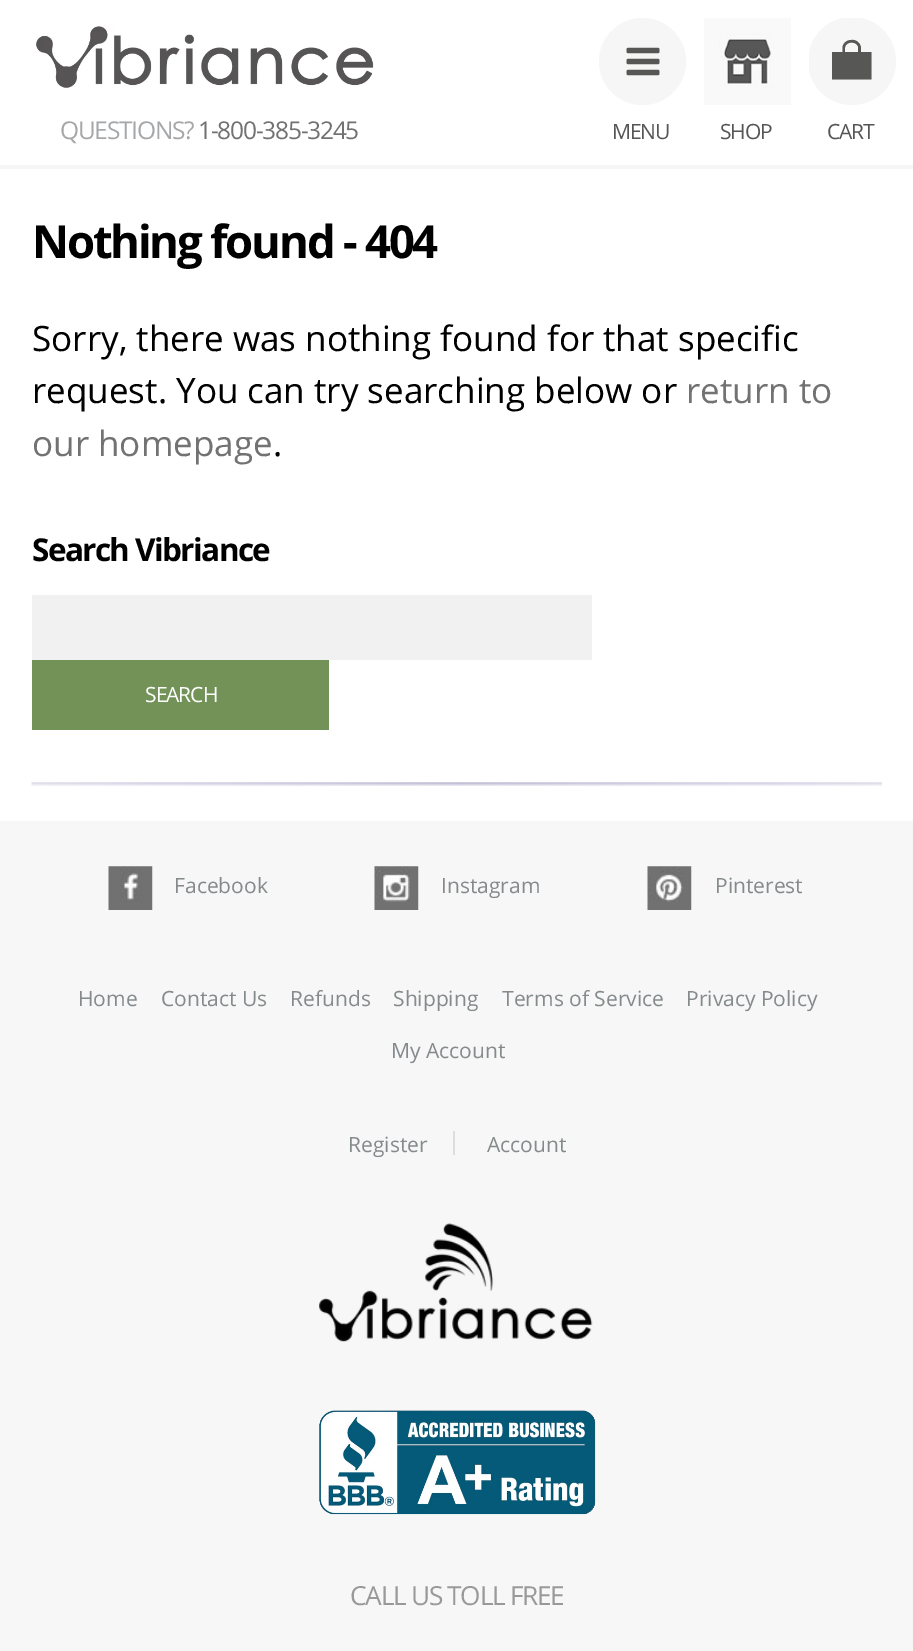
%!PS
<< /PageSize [913 1651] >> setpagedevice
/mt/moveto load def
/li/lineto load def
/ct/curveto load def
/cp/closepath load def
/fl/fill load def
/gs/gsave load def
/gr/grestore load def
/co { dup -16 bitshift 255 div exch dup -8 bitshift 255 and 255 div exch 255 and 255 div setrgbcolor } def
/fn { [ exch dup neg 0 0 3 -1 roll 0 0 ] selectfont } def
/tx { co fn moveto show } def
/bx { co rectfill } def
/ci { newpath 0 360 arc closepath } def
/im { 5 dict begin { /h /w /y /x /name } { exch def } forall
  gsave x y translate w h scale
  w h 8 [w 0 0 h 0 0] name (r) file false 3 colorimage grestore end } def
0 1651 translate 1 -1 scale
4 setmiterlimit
0 0 913 1651 16#FFFFFF bx
0 165 913 4 16#F6F6F6 bx
(media/1.raw) 36 26 338 62 im
642.5 61.5 43.5 ci fl
(media/2.raw) 626 47 34 29 im
(media/3.raw) 704 18 87 87 im
gs
809 18 87 87 rectclip
852 61 44 ci fl
gr
16#575756 co
861 52 mt 861 48 li 860.5 43 856.5 39.5 851.5 40 ct 845.5 40 842.5 44.5 842.5 48 ct 842.5 52 li 832 52 li 832 79.5 li 871.5 79.5 li 871.5 52 li cp 845 48 mt 845 41.5 856 40.5 858 46.5 ct 858.5 48 858 50 858 52 ct 845 52 li cp fl
32 595 560 65 16#F1F1F1 bx
32 660 297 70 16#729258 bx
(media/4.raw) 31 782 851 4 im
0 821 913 830 16#F7F7F7 bx
(media/5.raw) 108 866 45 44 im
(media/6.raw) 374 866 45 44 im
(media/7.raw) 647 866 45 44 im
453 1131 2 24 16#DDDDDD bx
(media/8.raw) 319 1223 274 119 im
(media/9.raw) 319 1410 277 105 im
/OpenSans-Regular 24.5 fn
16#A5A7A9 co
60 139 mt -1.25 0 (QUESTIONS?) ashow
16#727272 co
198 139 mt -1.25 0 (1-800-385-3245) ashow
/OpenSans-Regular 21 fn
16#565656 co
612 139 mt -1.25 0 (MENU) ashow
720 139 mt -1.25 0 (SHOP) ashow
827 139 mt -1.25 0 (CART) ashow
/OpenSans-Bold 45.5 fn
16#000000 co
32 258 mt -2.25 0 (Nothing found - 404) ashow
(Sorry, there was nothing found for that specific) 32 351 /OpenSans-Regular 35 16#000000 tx
(request. You can try searching below or) 32 403 /OpenSans-Regular 35 16#000000 tx
(return to) 686 403 /OpenSans-Regular 35 16#727272 tx
(our homepage) 32 456 /OpenSans-Regular 35 16#727272 tx
(.) 273 456 /OpenSans-Regular 35 16#000000 tx
/OpenSans-Bold 31.5 fn
32 561 mt -1.6 0 (Search Vibriance) ashow
/OpenSans-Regular 21 fn
16#FFFFFF co
145 702 mt -1 0 (SEARCH) ashow
(Facebook) 174 893 /OpenSans-Regular 21 16#858A8C tx
(Instagram) 441 893 /OpenSans-Regular 21 16#858A8C tx
(Pinterest) 715 893 /OpenSans-Regular 21 16#858A8C tx
(Home) 78 1006 /OpenSans-Regular 21 16#858A8C tx
(Contact Us) 161 1006 /OpenSans-Regular 21 16#858A8C tx
(Refunds) 290 1006 /OpenSans-Regular 21 16#858A8C tx
(Shipping) 393 1006 /OpenSans-Regular 21 16#858A8C tx
(Terms of Service) 502 1006 /OpenSans-Regular 21 16#858A8C tx
(Privacy Policy) 686 1006 /OpenSans-Regular 21 16#858A8C tx
(My Account) 391 1058 /OpenSans-Regular 21 16#858A8C tx
(Register) 348 1152 /OpenSans-Regular 21 16#858A8C tx
(Account) 487 1152 /OpenSans-Regular 21 16#858A8C tx
/OpenSans-Regular 26.25 fn
16#999999 co
350 1605 mt -1.3 0 (CALL US TOLL FREE) ashow
showpage
